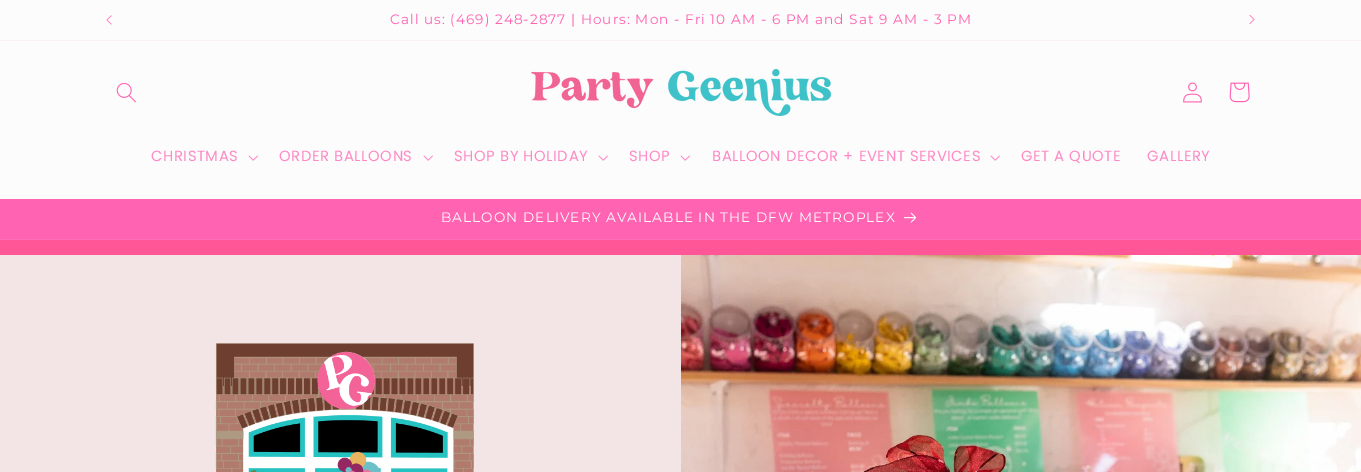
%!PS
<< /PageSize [1361 472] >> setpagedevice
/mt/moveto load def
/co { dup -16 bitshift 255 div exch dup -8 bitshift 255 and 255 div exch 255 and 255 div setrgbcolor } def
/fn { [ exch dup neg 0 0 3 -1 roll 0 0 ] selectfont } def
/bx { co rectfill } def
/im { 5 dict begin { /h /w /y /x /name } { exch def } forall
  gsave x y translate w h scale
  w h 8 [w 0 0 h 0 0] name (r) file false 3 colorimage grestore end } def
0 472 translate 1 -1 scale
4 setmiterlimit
0 0 1361 472 16#FCFCFC bx
0 40 1361 1 16#FCF0F6 bx
(media/1.raw) 106 15 6 10 im
(media/2.raw) 1249 15 6 10 im
(media/3.raw) 116 82 20 21 im
(media/4.raw) 531 69 300 47 im
(media/5.raw) 1183 82 19 21 im
(media/6.raw) 1229 82 21 21 im
(media/7.raw) 248 155 10 6 im
(media/7.raw) 423 155 10 6 im
(media/7.raw) 598 155 10 6 im
(media/7.raw) 680 155 10 6 im
(media/7.raw) 990 155 10 6 im
0 199 1361 40 16#FF63B2 bx
0 239 1361 1 16#FF6FB8 bx
(media/8.raw) 904 212 13 11 im
0 240 1361 15 16#FF5697 bx
0 255 681 217 16#F3E5E5 bx
(media/9.raw) 215 343 259 129 im
(media/10.raw) 681 255 680 217 im
/Montserrat-Regular 13.65 fn
16#FF63B2 co
390 24 mt 1.05 0 (Call us: \(469\) 248-2877 | Hours: Mon - Fri 10 AM - 6 PM and Sat 9 AM - 3 PM) ashow
/Poppins-Regular 14.75 fn
16#FE89C5 co
151 161 mt .6 0 (CHRISTMAS) ashow
279 161 mt .6 0 (ORDER BALLOONS) ashow
454 161 mt .6 0 (SHOP BY HOLIDAY) ashow
629 161 mt .6 0 (SHOP) ashow
712 161 mt .6 0 (BALLOON DECOR + EVENT SERVICES) ashow
1021 161 mt .6 0 (GET A QUOTE) ashow
1147 161 mt .6 0 (GALLERY) ashow
/Montserrat-Regular 13.65 fn
16#FCFCFC co
441 222 mt 1.05 0 (BALLOON DELIVERY AVAILABLE IN THE DFW METROPLEX) ashow
showpage
